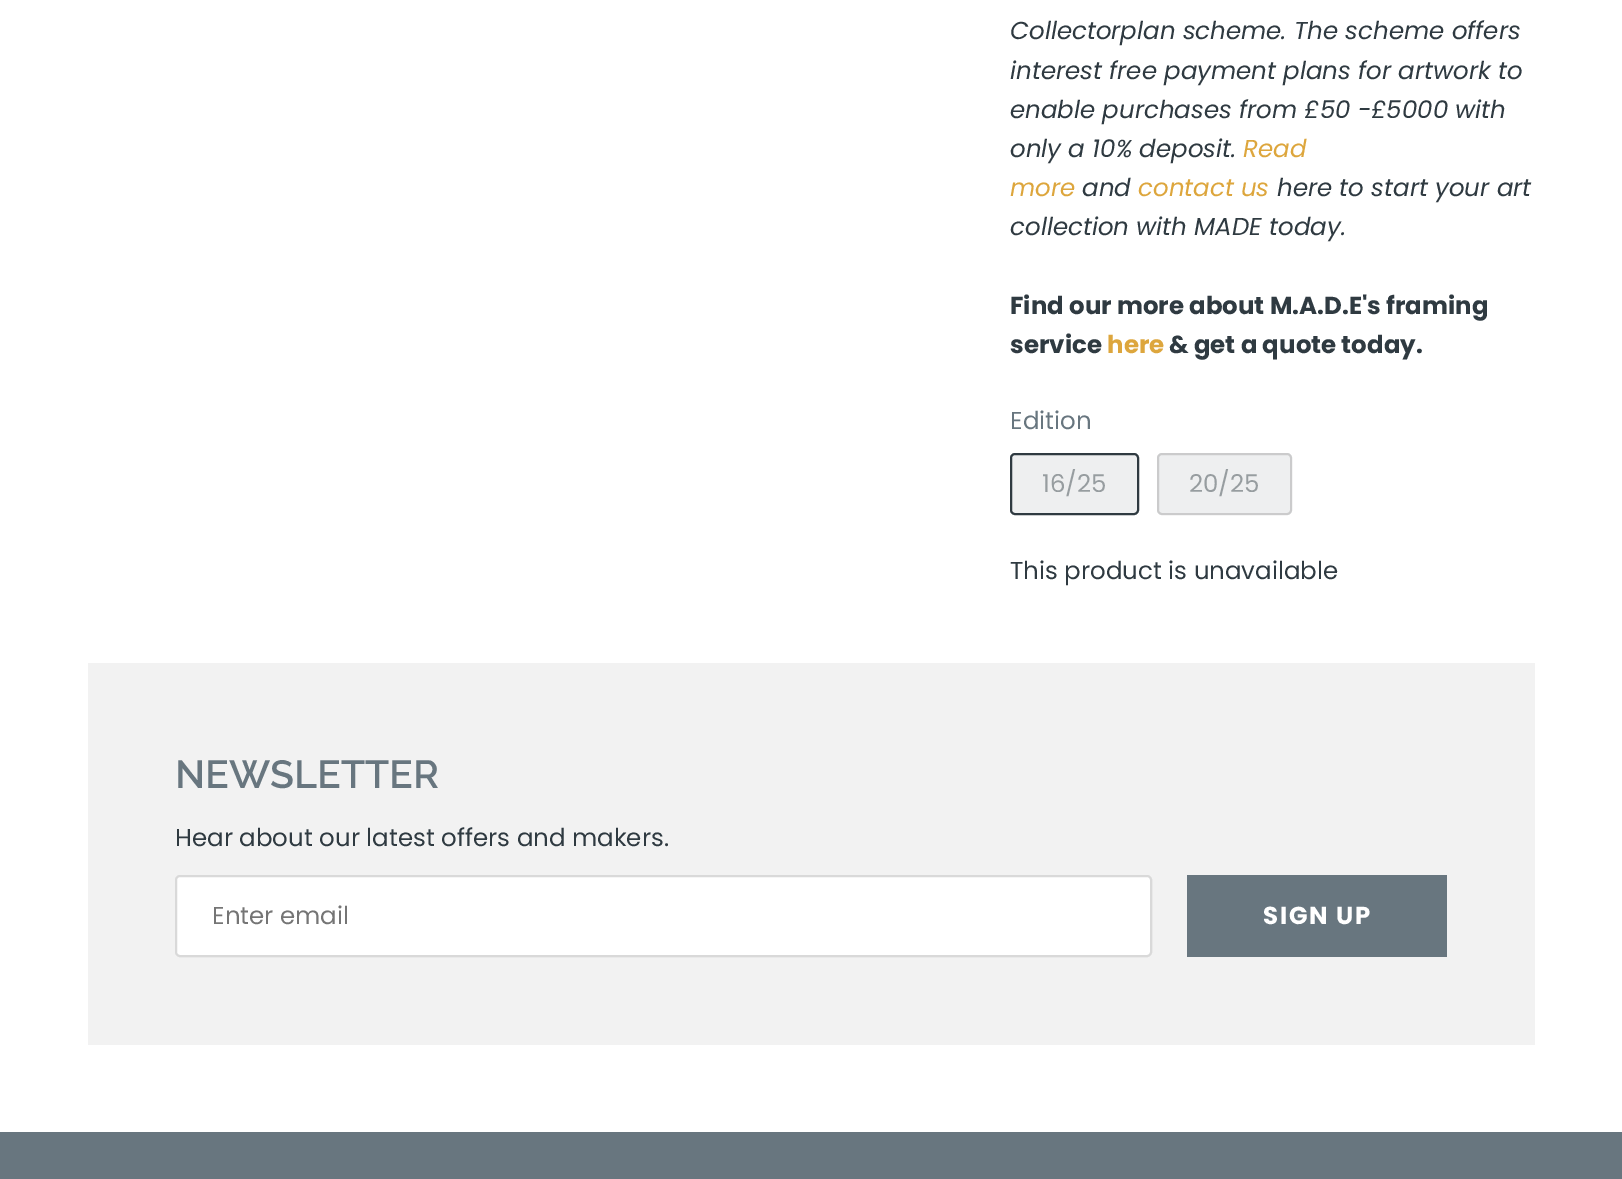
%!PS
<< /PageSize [1622 1179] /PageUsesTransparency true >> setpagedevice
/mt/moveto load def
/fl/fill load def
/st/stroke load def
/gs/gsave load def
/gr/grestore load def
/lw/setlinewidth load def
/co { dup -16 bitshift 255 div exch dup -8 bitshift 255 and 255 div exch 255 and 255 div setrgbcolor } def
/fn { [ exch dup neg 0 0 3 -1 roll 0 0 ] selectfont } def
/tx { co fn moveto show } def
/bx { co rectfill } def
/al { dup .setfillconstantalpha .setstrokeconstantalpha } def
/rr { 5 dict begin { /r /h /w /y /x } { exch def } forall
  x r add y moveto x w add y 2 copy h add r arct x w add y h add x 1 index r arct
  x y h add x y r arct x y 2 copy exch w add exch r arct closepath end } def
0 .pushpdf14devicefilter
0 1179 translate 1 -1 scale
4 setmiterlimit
0 0 1622 1179 16#FFFFFF bx
16#EEEFF0 co
1011 454 127 60 4 rr gs fl gr
16#2F3A41 co
2 lw
st
16#EEEFF0 co
1157 453 135 62 5 rr fl
0.15 al
16#000000 co
1158 454 133 60 4 rr st
1 al
88 663 1447 382 16#F2F2F2 bx
16#FFFFFF co
175 875 977 82 5 rr fl
0.15 al
16#000000 co
176 876 975 80 4 rr st
1 al
1187 875 260 82 16#68767F bx
0 1132 1622 47 16#68767F bx
(Collectorplan scheme. The scheme offers) 1010 39 /Poppins-Italic 24.5 16#2F3A41 tx
(interest free payment plans for artwork to) 1010 79 /Poppins-Italic 24.5 16#2F3A41 tx
(enable purchases from £50 -£5000 with) 1010 118 /Poppins-Italic 24.5 16#2F3A41 tx
(only a 10% deposit.) 1010 157 /Poppins-Italic 24.5 16#2F3A41 tx
(Read) 1243 157 /Poppins-Italic 24.5 16#DDA63D tx
(more) 1010 196 /Poppins-Italic 24.5 16#DDA63D tx
(and) 1082 196 /Poppins-Italic 24.5 16#2F3A41 tx
(contact us) 1138 196 /Poppins-Italic 24.5 16#DDA63D tx
(here to start your art) 1277 196 /Poppins-Italic 24.5 16#2F3A41 tx
(collection with MADE today.) 1010 235 /Poppins-Italic 24.5 16#2F3A41 tx
(Find our more about M.A.D.E's framing) 1010 314 /Poppins-Bold 24.5 16#2F3A41 tx
(service) 1010 353 /Poppins-Bold 24.5 16#2F3A41 tx
(here) 1107 353 /Poppins-Bold 24.5 16#DDA63D tx
(& get a quote today.) 1169 353 /Poppins-Bold 24.5 16#2F3A41 tx
(Edition) 1010 429 /Poppins-Regular 24.5 16#68767F tx
(16/25) 1042 492 /Poppins-Regular 24.5 16#979DA0 tx
(20/25) 1189 492 /Poppins-Regular 24.5 16#979DA0 tx
(This product is unavailable) 1010 579 /Poppins-Regular 24.5 16#2F3A41 tx
(NEWSLETTER) 175 788 /Raleway-SemiBold 39.25 16#68767F tx
(Hear about our latest offers and makers.) 175 846 /Poppins-Regular 24.5 16#2F3A41 tx
(Enter email) 212 924 /Poppins-Regular 24.5 16#757575 tx
/Poppins-Bold 24.5 fn
16#FFFFFF co
1263 924 mt 1.75 0 (SIGN UP) ashow
.poppdf14devicefilter showpage
